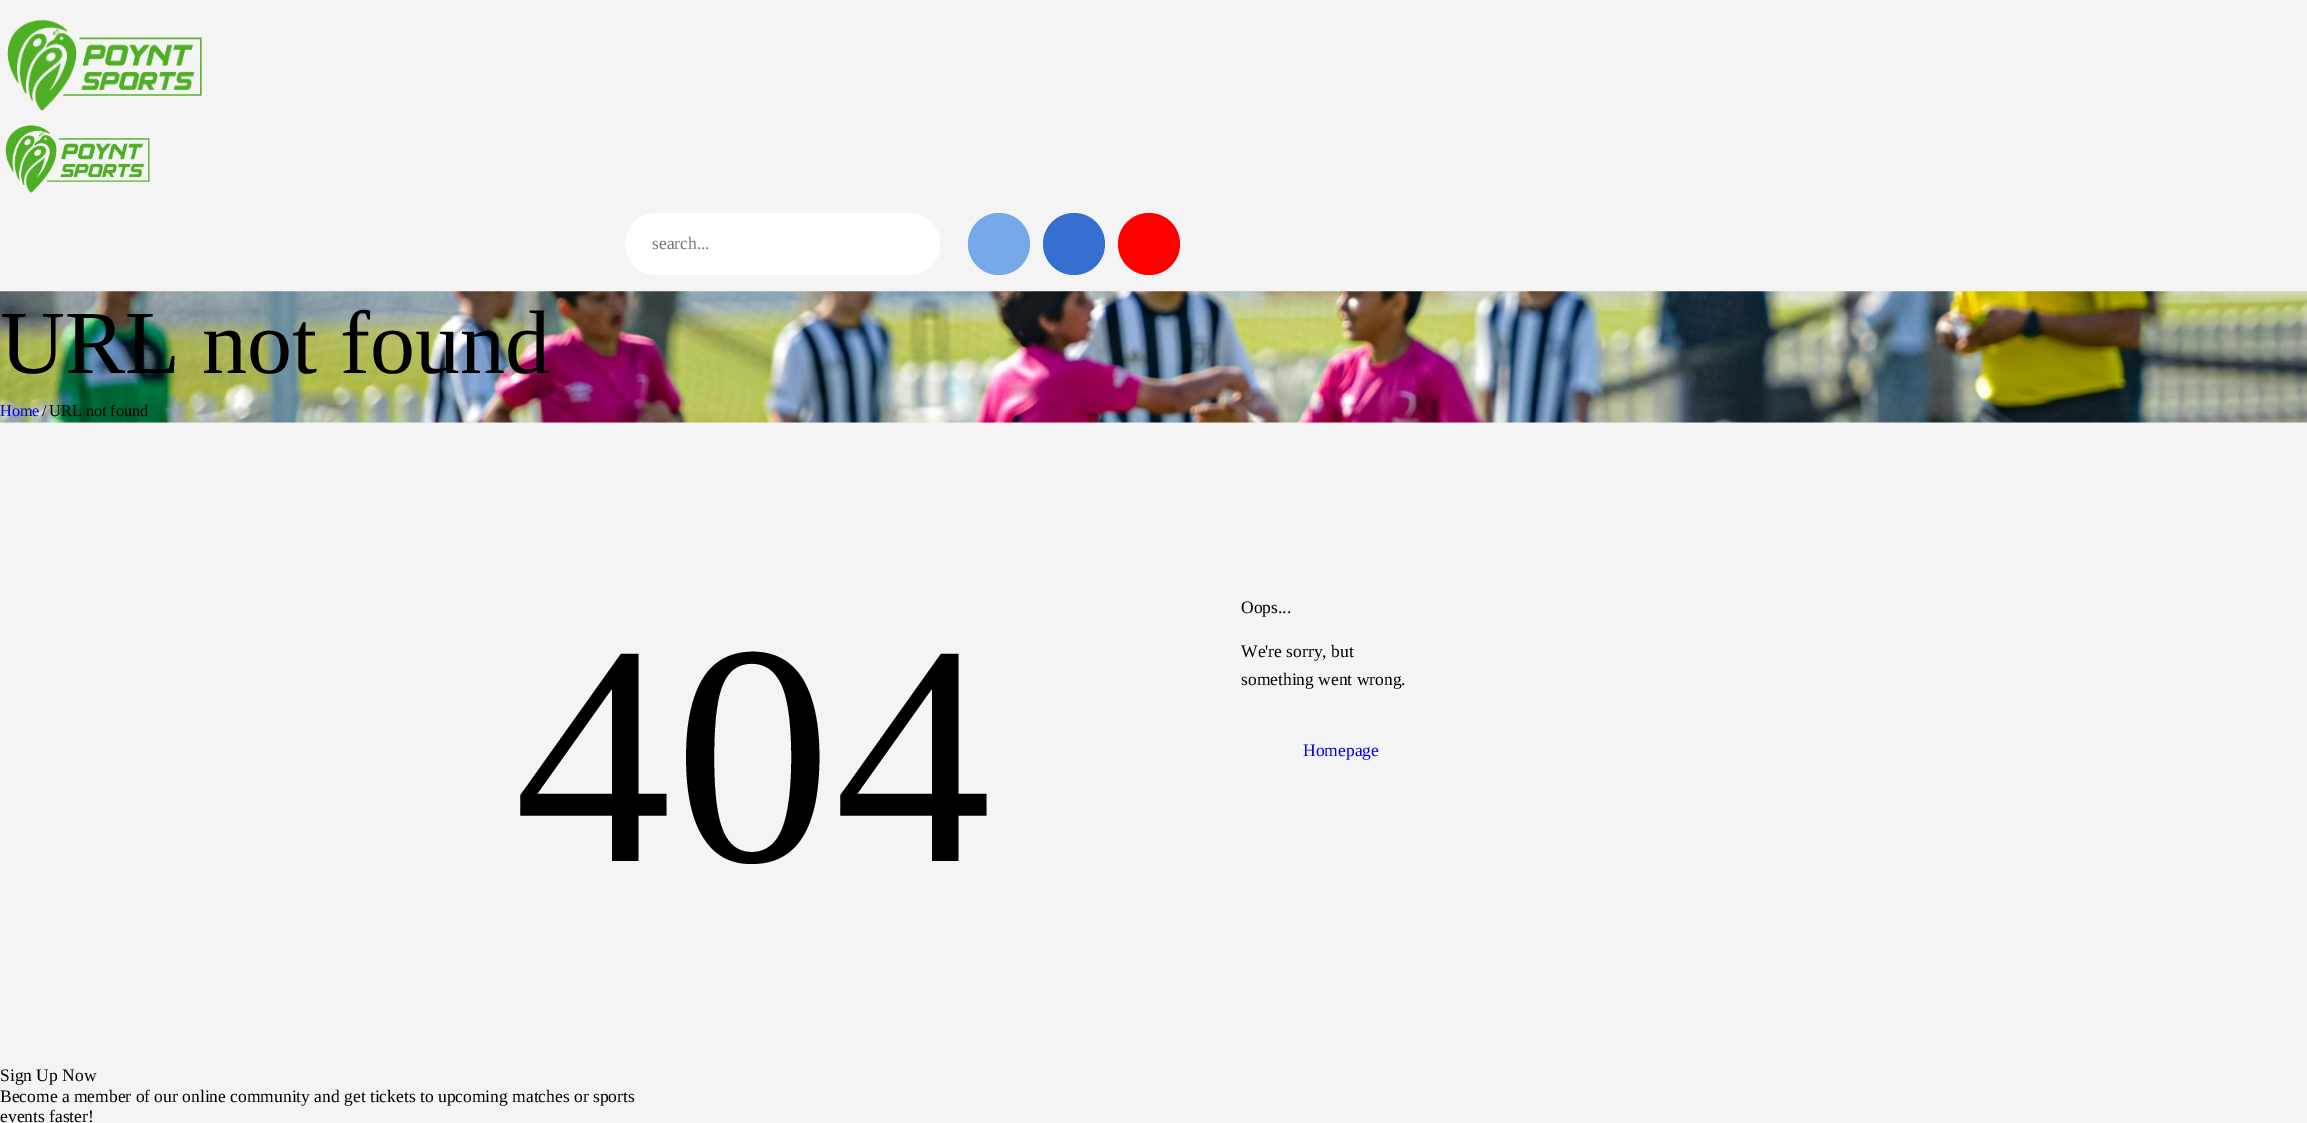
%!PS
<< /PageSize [2307 1123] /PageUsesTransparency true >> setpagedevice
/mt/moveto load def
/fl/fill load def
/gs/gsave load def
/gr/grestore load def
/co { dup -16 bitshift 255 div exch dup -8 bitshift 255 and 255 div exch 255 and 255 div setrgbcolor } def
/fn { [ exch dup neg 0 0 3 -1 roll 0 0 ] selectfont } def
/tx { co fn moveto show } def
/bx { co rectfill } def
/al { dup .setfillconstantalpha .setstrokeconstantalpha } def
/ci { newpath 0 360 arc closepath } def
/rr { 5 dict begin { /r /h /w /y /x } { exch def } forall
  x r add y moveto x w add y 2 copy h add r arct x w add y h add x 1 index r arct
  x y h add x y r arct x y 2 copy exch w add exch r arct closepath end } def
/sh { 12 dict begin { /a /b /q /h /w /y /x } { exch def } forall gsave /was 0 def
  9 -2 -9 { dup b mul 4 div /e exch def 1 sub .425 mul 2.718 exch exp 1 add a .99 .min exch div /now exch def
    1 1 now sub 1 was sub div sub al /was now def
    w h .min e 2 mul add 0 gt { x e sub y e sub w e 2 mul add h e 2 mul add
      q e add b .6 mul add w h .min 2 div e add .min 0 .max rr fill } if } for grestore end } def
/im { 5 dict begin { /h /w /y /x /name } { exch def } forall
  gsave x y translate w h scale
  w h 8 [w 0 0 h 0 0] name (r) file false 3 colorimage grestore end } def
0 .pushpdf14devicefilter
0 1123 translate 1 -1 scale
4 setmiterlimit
0 0 2307 1123 16#F4F4F4 bx
gs
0 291 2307 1 rectclip
16#000000 co
0 4 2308 291 0 2 .08 sh
gr
(media/1.raw) 7 19 195 92 im
(media/2.raw) 5 125 145 68 im
16#FFFFFF co
625 213 315 62 31 rr fl
16#76A9EA co
999 244 31 ci fl
16#356FCF co
1074 244 31 ci fl
16#FF0000 co
1149 244 31 ci fl
(media/3.raw) 0 291 2307 132 im
(search...) 652 249 /LiberationSerif-Regular 17.5 16#757575 tx
(URL not found) 0 373 /LiberationSerif-Regular 90 16#000000 tx
(Home) 0 416 /LiberationSerif-Regular 16.25 16#0000EE tx
(/) 42 416 /LiberationSerif-Regular 16.25 16#000000 tx
(URL not found) 49 416 /LiberationSerif-Regular 16.25 16#000000 tx
/LiberationSerif-Regular 315 fn
514 861 mt 2.5 0 (404) ashow
(Oops...) 1241 613 /LiberationSerif-Regular 17.5 16#000000 tx
(We're sorry, but) 1241 657 /LiberationSerif-Regular 17.5 16#000000 tx
(something went wrong.) 1241 685 /LiberationSerif-Regular 17.5 16#000000 tx
(Homepage) 1303 756 /LiberationSerif-Regular 17.5 16#0000EE tx
(Sign Up Now) 0 1081 /LiberationSerif-Regular 17.5 16#000000 tx
(Become a member of our online community and get tickets to upcoming matches or sports) 0 1102 /LiberationSerif-Regular 17.5 16#000000 tx
(events faster!) 0 1122 /LiberationSerif-Regular 17.5 16#000000 tx
.poppdf14devicefilter showpage
